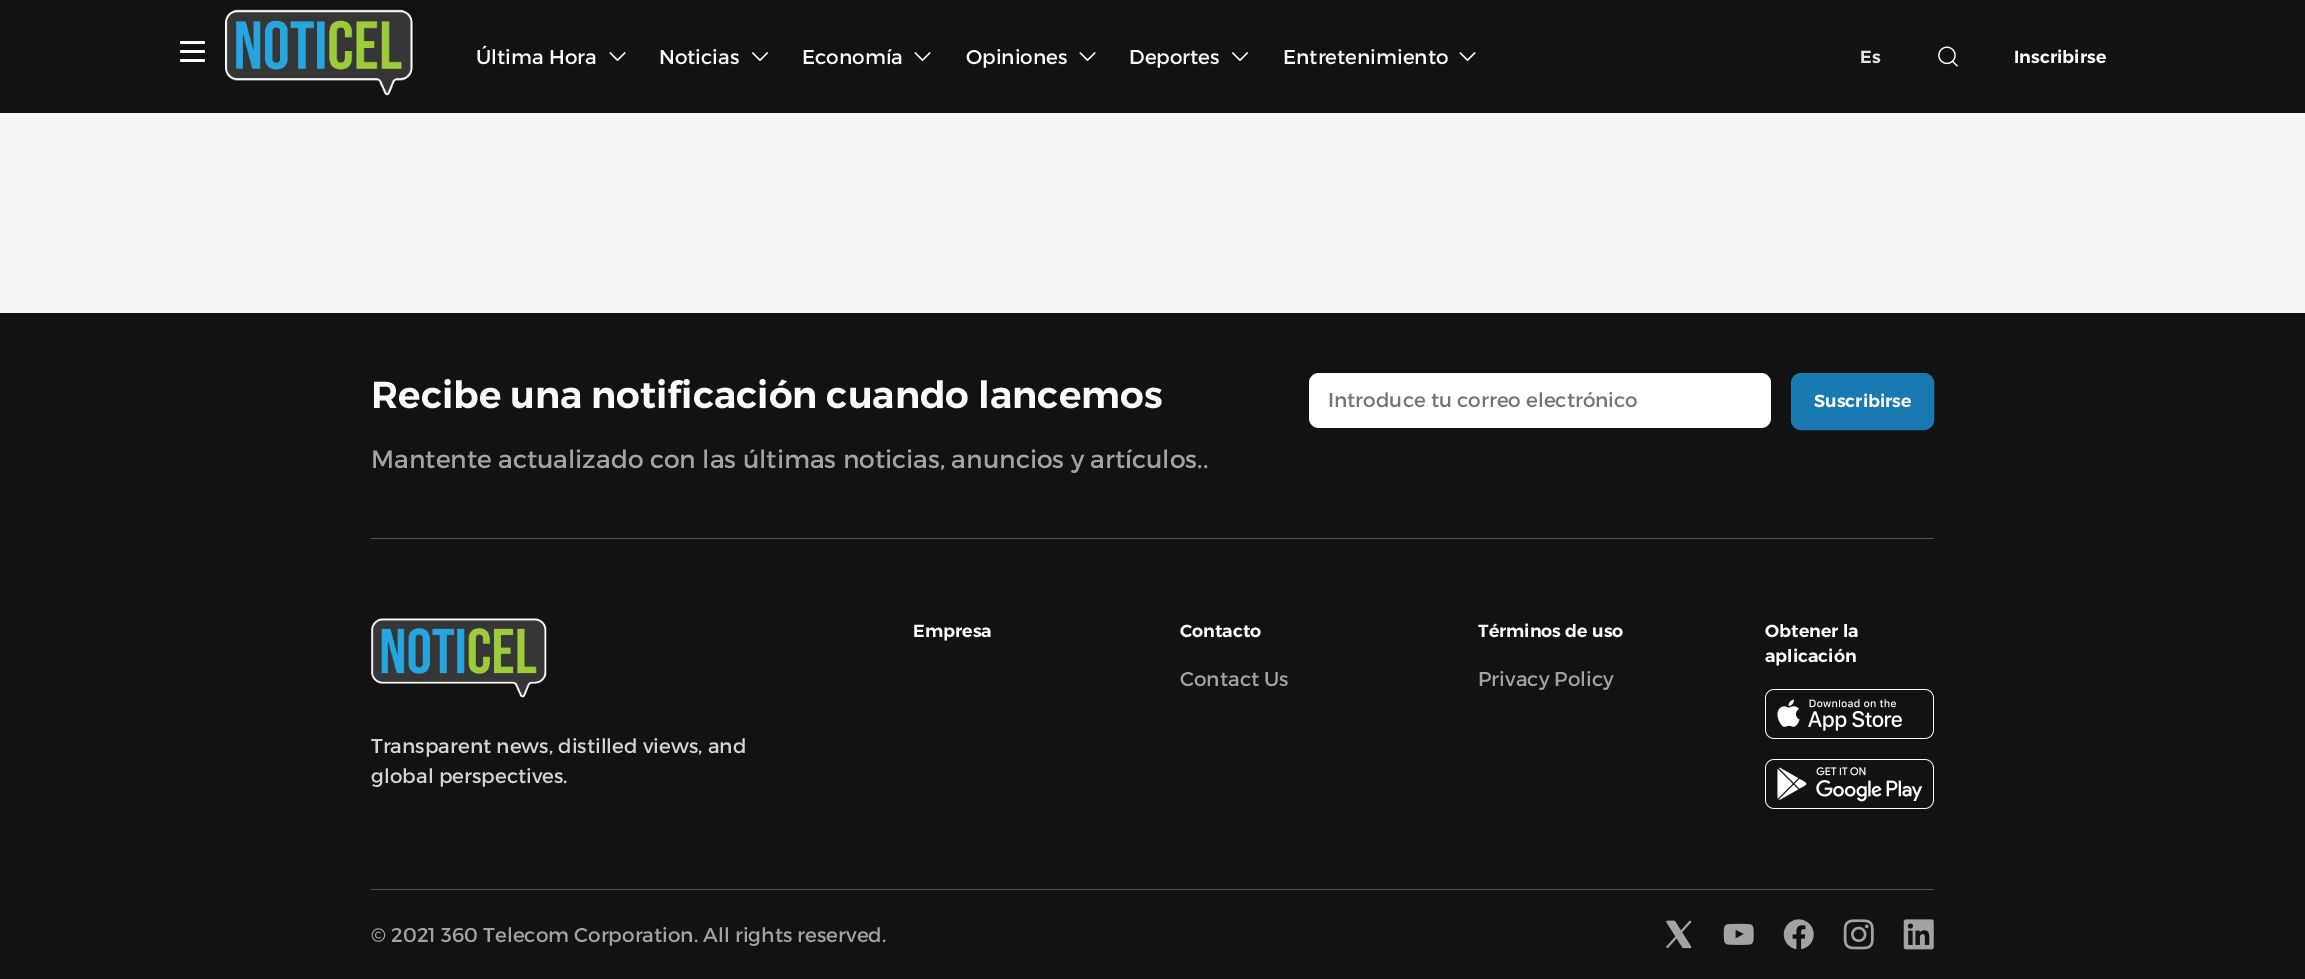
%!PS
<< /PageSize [2305 979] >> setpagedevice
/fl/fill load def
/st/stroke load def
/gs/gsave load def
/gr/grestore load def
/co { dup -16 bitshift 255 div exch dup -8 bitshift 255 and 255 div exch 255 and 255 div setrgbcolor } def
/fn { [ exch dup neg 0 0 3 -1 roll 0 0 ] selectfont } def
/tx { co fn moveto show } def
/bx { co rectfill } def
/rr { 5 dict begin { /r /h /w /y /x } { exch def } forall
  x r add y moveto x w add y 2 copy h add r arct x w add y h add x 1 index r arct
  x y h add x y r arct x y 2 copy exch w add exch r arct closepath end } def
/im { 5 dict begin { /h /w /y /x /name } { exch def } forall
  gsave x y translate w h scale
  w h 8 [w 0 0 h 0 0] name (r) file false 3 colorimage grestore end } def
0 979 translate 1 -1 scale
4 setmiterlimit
0 0 2305 979 16#F5F5F5 bx
0 0 2305 113 16#121212 bx
16#FFFFFF co
180 50 25 3 1.5 rr fl
180 41 25 3 1.5 rr fl
180 59 25 3 1.5 rr fl
(media/1.raw) 225 9 188 87 im
(media/2.raw) 609 52 17 9 im
(media/3.raw) 752 52 16 9 im
(media/2.raw) 914 52 17 9 im
(media/2.raw) 1079 52 17 9 im
(media/3.raw) 1232 52 16 9 im
(media/2.raw) 1459 52 17 9 im
(media/4.raw) 1938 46 20 21 im
0 313 2305 666 16#121212 bx
371 538 1563 1 16#525252 bx
16#FFFFFF co
1309 373 462 55 10 rr fl
16#187AB1 co
1791.5 373.5 142 56 9.5 rr gs fl gr
st
(media/5.raw) 1765 689 169 50 im
(media/6.raw) 1765 759 169 50 im
(media/7.raw) 371 618 176 80 im
371 889 1563 1 16#525252 bx
(media/8.raw) 1666 920 26 29 im
(media/9.raw) 1723 923 31 22 im
(media/10.raw) 1783 919 31 31 im
(media/11.raw) 1843 919 31 31 im
(media/12.raw) 1903 919 31 31 im
(Última Hora) 476 64 /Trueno-Regular 20 16#FAFAFA tx
(Noticias) 659 64 /Trueno-Regular 20 16#FAFAFA tx
(Economía) 802 64 /Trueno-Regular 20 16#FAFAFA tx
(Opiniones) 966 64 /Trueno-Regular 20 16#FAFAFA tx
(Deportes) 1129 64 /Trueno-Regular 20 16#FAFAFA tx
(Entretenimiento) 1283 64 /Trueno-Regular 20 16#FAFAFA tx
(Es) 1860 63 /Trueno-SemiBold 17.5 16#E5E5E5 tx
(Inscribirse) 2014 63 /Trueno-SemiBold 17.5 16#FAFAFA tx
(Recibe una notificación cuando lancemos) 371 408 /Trueno-SemiBold 37.5 16#FAFAFA tx
(Mantente actualizado con las últimas noticias, anuncios y artículos..) 371 468 /Trueno-Regular 25 16#A3A3A3 tx
(Introduce tu correo electrónico) 1328 407 /Trueno-Regular 20 16#757575 tx
(Suscribirse) 1814 407 /Trueno-SemiBold 17.5 16#FAFAFA tx
(Empresa) 913 637 /Trueno-SemiBold 17.5 16#FAFAFA tx
(Contacto) 1180 637 /Trueno-SemiBold 17.5 16#FAFAFA tx
(Contact Us) 1180 686 /Trueno-Regular 20 16#A3A3A3 tx
(Términos de uso) 1478 637 /Trueno-SemiBold 17.5 16#FAFAFA tx
(Privacy Policy) 1478 686 /Trueno-Regular 20 16#A3A3A3 tx
(Obtener la) 1765 637 /Trueno-SemiBold 17.5 16#FAFAFA tx
(aplicación) 1765 662 /Trueno-SemiBold 17.5 16#FAFAFA tx
(Transparent news, distilled views, and) 371 753 /Trueno-Regular 20 16#D4D4D4 tx
(global perspectives.) 371 783 /Trueno-Regular 20 16#D4D4D4 tx
(© 2021 360 Telecom Corporation. All rights reserved.) 371 942 /Trueno-Regular 20 16#A3A3A3 tx
showpage
